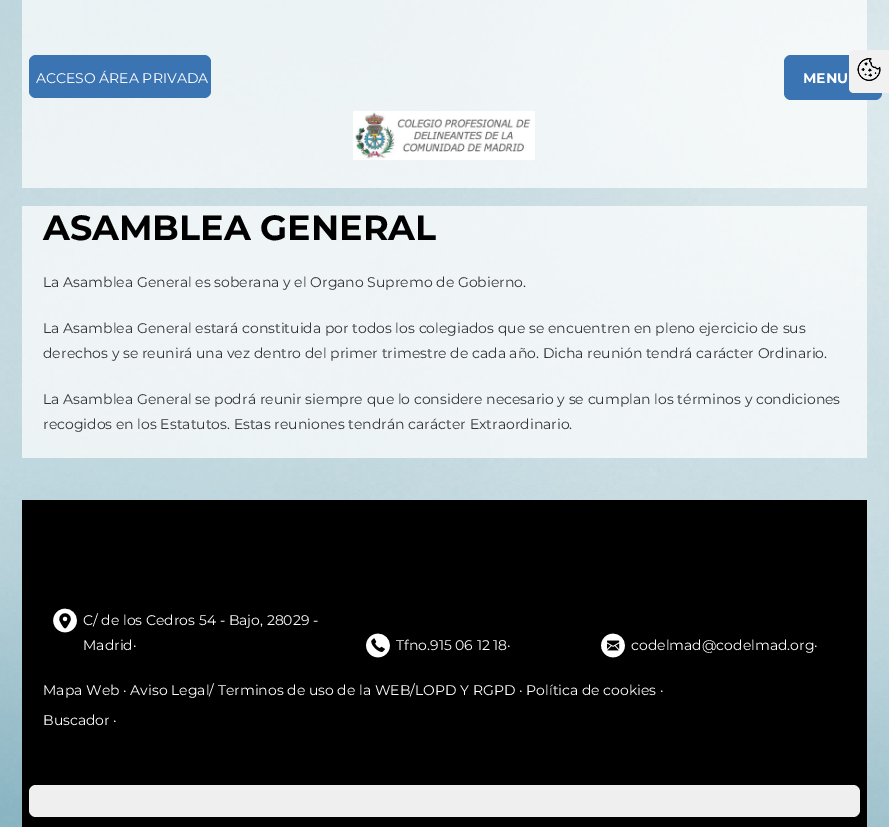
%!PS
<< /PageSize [889 827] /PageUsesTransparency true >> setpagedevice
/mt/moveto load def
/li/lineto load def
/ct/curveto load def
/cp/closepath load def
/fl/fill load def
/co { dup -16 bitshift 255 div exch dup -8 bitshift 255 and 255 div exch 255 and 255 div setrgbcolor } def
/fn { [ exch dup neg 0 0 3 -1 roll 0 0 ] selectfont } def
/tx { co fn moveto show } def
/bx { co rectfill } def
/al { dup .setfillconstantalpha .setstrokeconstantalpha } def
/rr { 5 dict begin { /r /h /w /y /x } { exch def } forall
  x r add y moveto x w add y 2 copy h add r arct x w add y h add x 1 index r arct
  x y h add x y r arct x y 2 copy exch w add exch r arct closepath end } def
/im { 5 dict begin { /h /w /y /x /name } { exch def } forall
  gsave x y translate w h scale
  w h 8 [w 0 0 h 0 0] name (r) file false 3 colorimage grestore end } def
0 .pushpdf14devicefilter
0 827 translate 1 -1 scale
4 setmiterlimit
0 0 889 827 16#FFFFFF bx
(media/1.raw) 0 0 889 827 im
0.7 al
22 0 845 188 16#FFFFFF bx
1 al
16#3B74B2 co
29 55 182 43 7 rr fl
(media/2.raw) 353 111 182 49 im
22 500 845 327 16#000000 bx
16#3B74B2 co
784 55 98 45 7 rr fl
(media/3.raw) 53 608 24 25 im
(media/4.raw) 366 633 24 25 im
(media/5.raw) 601 633 24 25 im
16#EFEFEF co
29 785 831 32 7 rr fl
0.7 al
22 206 845 252 16#FFFFFF bx
1 al
16#F1F1F1 co
854 50 mt 889 50 li 889 93 li 854 93 li 851 93 849 91 849 88 ct 849 55 li 849 52 851 50 854 50 ct cp fl
(media/6.raw) 857 58 24 23 im
(ACCESO ÁREA PRIVADA) 36 83 /Montserrat-Regular 14 16#FFFFFF tx
(MENU) 803 83 /Montserrat-Bold 14 16#FFFFFF tx
(C/ de los Cedros 54 - Bajo, 28029 -) 83 625 /Montserrat-Regular 14 16#FFFFFF tx
(Madrid·) 83 650 /Montserrat-Regular 14 16#FFFFFF tx
(Tfno.915 06 12 18·) 396 650 /Montserrat-Regular 14 16#FFFFFF tx
(codelmad@codelmad.org·) 631 650 /Montserrat-Regular 14 16#FFFFFF tx
(Mapa Web · Aviso Legal/ Terminos de uso de la WEB/LOPD Y RGPD · Política de cookies ·) 43 695 /Montserrat-Regular 14 16#FFFFFF tx
(Buscador ·) 43 725 /Montserrat-Regular 14 16#FFFFFF tx
(ASAMBLEA GENERAL) 43 240 /Montserrat-Bold 35 16#000000 tx
(La Asamblea General es soberana y el Organo Supremo de Gobierno.) 43 287 /Montserrat-Regular 14 16#333333 tx
(La Asamblea General estará constituida por todos los colegiados que se encuentren en pleno ejercicio de sus) 43 333 /Montserrat-Regular 14 16#333333 tx
(derechos y se reunirá una vez dentro del primer trimestre de cada año. Dicha reunión tendrá carácter Ordinario.) 43 358 /Montserrat-Regular 14 16#333333 tx
(La Asamblea General se podrá reunir siempre que lo considere necesario y se cumplan los términos y condiciones) 43 404 /Montserrat-Regular 14 16#333333 tx
(recogidos en los Estatutos. Estas reuniones tendrán carácter Extraordinario.) 43 429 /Montserrat-Regular 14 16#333333 tx
.poppdf14devicefilter showpage
